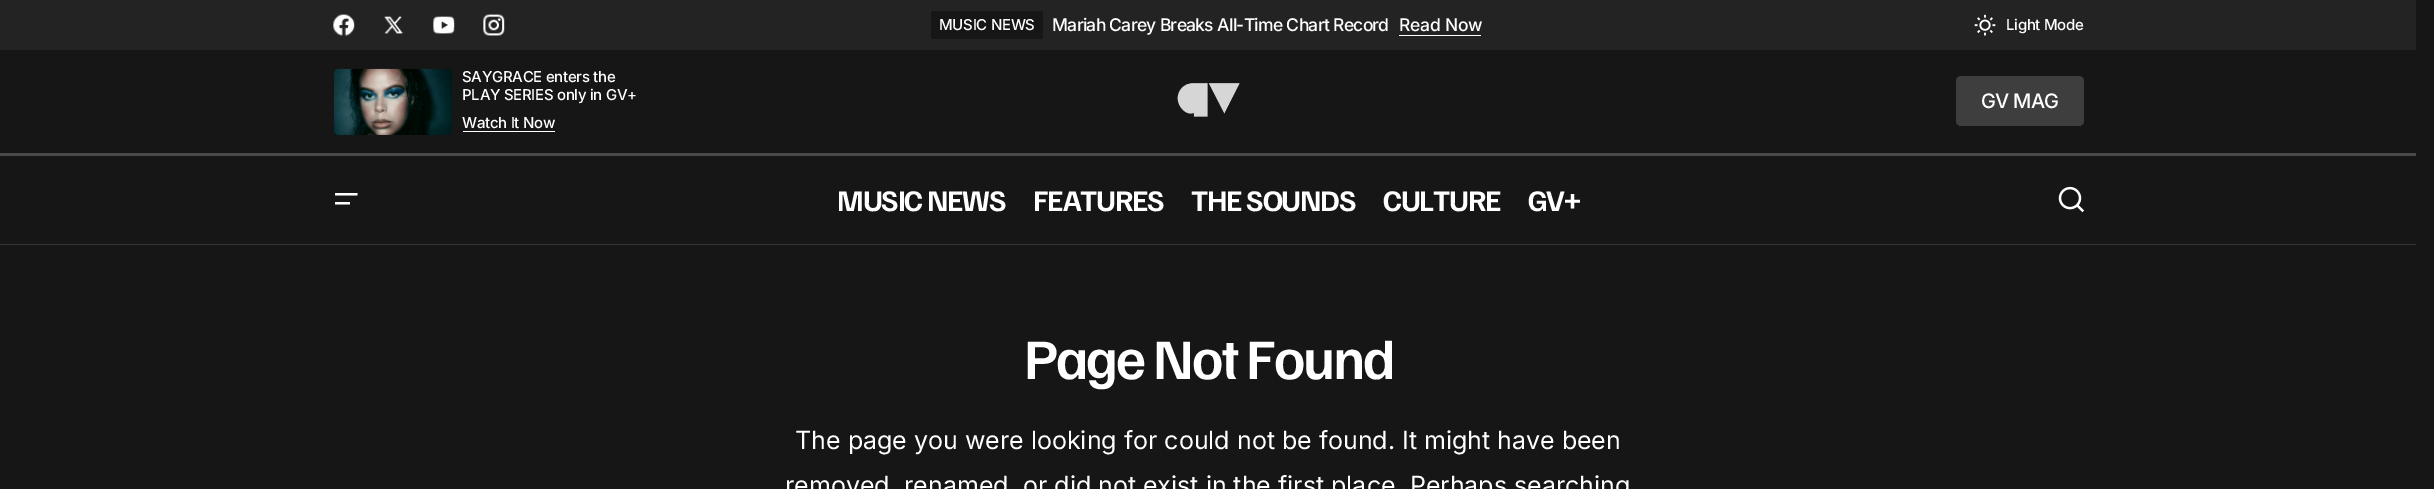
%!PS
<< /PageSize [2434 489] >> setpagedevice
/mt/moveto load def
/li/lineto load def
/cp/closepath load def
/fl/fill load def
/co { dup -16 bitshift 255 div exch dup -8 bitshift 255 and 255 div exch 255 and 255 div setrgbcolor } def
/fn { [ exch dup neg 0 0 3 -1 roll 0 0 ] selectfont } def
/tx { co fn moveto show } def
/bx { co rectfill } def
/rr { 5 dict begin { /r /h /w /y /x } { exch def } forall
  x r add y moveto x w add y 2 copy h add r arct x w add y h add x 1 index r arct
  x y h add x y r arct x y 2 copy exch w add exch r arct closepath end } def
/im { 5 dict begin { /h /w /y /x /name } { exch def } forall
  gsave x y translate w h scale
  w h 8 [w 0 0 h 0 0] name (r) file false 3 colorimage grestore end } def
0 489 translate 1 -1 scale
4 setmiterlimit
0 0 2434 489 16#161616 bx
0 0 2416 50 16#232323 bx
(media/1.raw) 333 14 22 22 im
(media/2.raw) 384 16 20 18 im
(media/3.raw) 433 16 22 18 im
(media/4.raw) 483 14 22 22 im
16#161616 co
931 11 112 28 2.5 rr fl
1399 35 82 1 16#FFFFFF bx
(media/5.raw) 1974 14 22 22 im
(media/6.raw) 334 68 119 67 im
463 131 92 1 16#FFFFFF bx
(media/7.raw) 1177 83 63 34 im
16#3E3E3E co
1956 76 128 50 5 rr fl
0 153 2416 3 16#494949 bx
16#FFFFFF co
335 193 mt 357.5 193 li 357.5 195.5 li 335 195.5 li cp 335 202 mt 350 202 li 350 204.5 li 335 204.5 li cp fl
(media/8.raw) 2058 186 26 27 im
0 244 2416 1 16#343434 bx
/Inter-Medium 15 fn
16#FFFFFF co
939 30 mt -.3 0 (MUSIC NEWS) ashow
/Inter-Medium 17.5 fn
1052 31 mt -.7 0 (Mariah Carey Breaks All-Time Chart Record) ashow
1399 31 mt -.25 0 (Read Now) ashow
/Inter-Medium 15 fn
2006 30 mt -.3 0 (Light Mode) ashow
462 82 mt -.3 0 (SAYGRACE enters the) ashow
462 100 mt -.3 0 (PLAY SERIES only in GV+) ashow
462 128 mt -.3 0 (Watch It Now) ashow
/Inter-Medium 20 fn
1981 108 mt -.75 0 (GV MAG) ashow
/FamiljenGrotesk-Bold 30 fn
837 211 mt -1.25 0 (MUSIC NEWS) ashow
1033 211 mt -1.25 0 (FEATURES) ashow
1191 211 mt -1.25 0 (THE SOUNDS) ashow
1383 211 mt -1.25 0 (CULTURE) ashow
1528 211 mt -1.25 0 (GV+) ashow
/FamiljenGrotesk-SemiBold 57.5 fn
1024 379 mt -2.25 0 (Page Not Found) ashow
(The page you were looking for could not be found. It might have been) 795 449 /Inter-Regular 25 16#FFFFFF tx
(removed, renamed, or did not exist in the first place. Perhaps searching) 785 494 /Inter-Regular 25 16#FFFFFF tx
showpage
